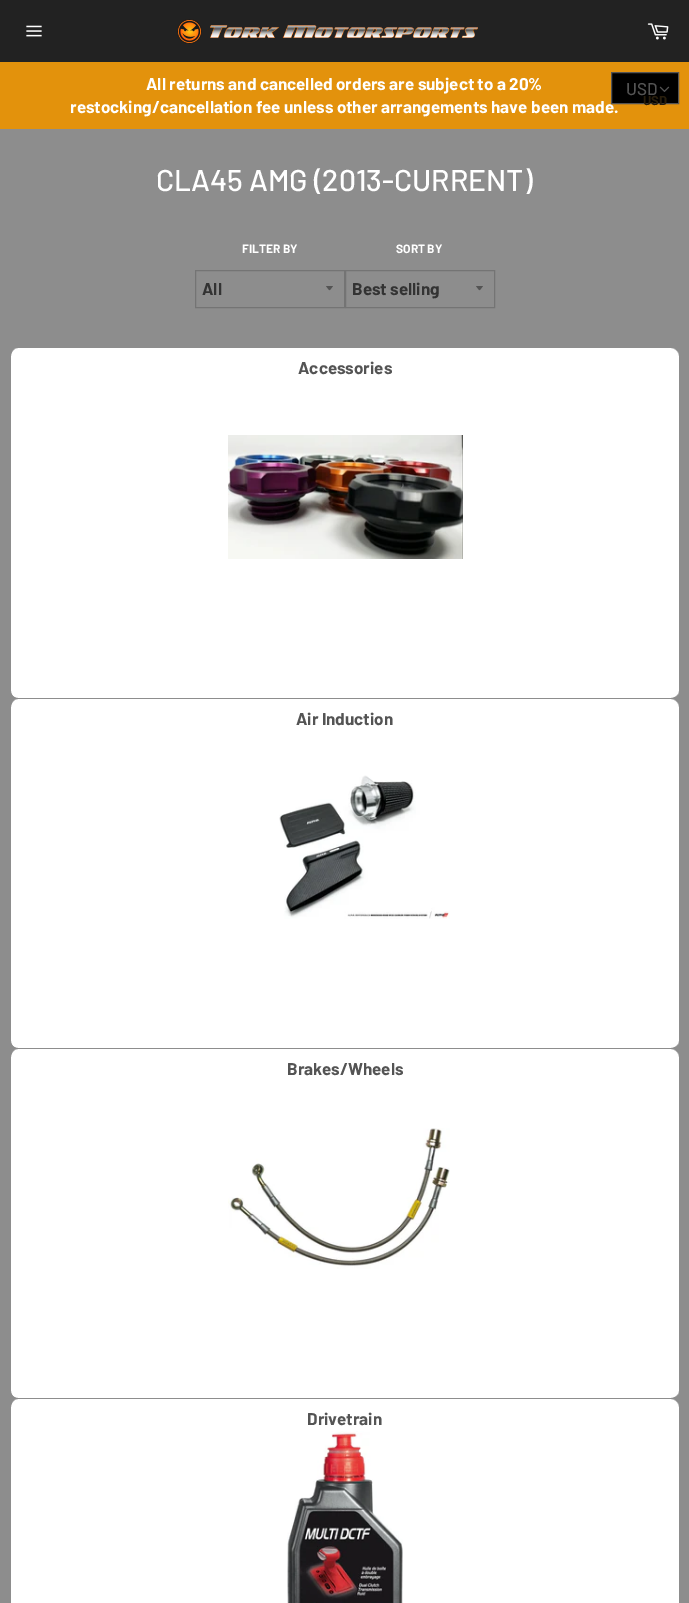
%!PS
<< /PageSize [689 1603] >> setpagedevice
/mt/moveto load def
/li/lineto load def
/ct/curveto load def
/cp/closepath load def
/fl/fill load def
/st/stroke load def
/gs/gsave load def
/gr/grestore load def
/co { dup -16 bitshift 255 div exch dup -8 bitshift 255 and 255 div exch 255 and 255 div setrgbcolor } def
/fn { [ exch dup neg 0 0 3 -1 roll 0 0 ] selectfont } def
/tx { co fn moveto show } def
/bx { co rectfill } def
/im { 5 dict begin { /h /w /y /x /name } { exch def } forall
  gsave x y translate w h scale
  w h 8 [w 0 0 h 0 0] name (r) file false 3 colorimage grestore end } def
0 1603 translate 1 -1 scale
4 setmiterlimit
0 0 689 1603 16#8D8D8D bx
0 0 689 62 16#222222 bx
0 62 689 67 16#E3920C bx
(media/1.raw) 26 25 16 12 im
(media/2.raw) 177 19 25 25 im
(media/3.raw) 210 25 268 13 im
(media/4.raw) 647 23 22 17 im
16#545454 co
326 286 mt 330.5 291.5 328.5 291.5 333 286 ct cp fl
16#747474 co
195.5 270.5 149 37 rectstroke
16#545454 co
476 286 mt 480.5 291.5 478.5 291.5 483 286 ct cp fl
16#747474 co
345.5 270.5 149 37 rectstroke
16#FFFFFF co
18 348 mt 671 348 li 675 348 679 352 679 356 ct 679 691 li 679 695 675 698 671 698 ct 18 698 li 14 698 11 695 11 691 ct 11 356 li 11 352 14 348 18 348 ct cp fl
16#8D8D8D co
18 348 mt 671 348 li 675 348 679 352 679 356 ct 679 691 li 679 695 675 699 671 699 ct 18 699 li 14 699 10 695 10 691 ct 10 356 li 10 352 14 348 18 348 ct cp 18 348 mt 671 348 li 675 348 679 352 679 356 ct 679 691 li 679 695 675 698 671 698 ct 18 698 li 14 698 11 695 11 691 ct 11 356 li 11 352 14 348 18 348 ct cp eofill
(media/6.raw) 228 435 235 124 im
16#FFFFFF co
18 699 mt 671 699 li 675 699 679 703 679 707 ct 679 1041 li 679 1045 675 1048 671 1048 ct 18 1048 li 14 1048 11 1045 11 1041 ct 11 707 li 11 703 14 699 18 699 ct cp fl
16#8D8D8D co
18 699 mt 671 699 li 675 699 679 703 679 707 ct 679 1041 li 679 1045 675 1049 671 1049 ct 18 1049 li 14 1049 10 1045 10 1041 ct 10 707 li 10 703 14 699 18 699 ct cp 18 699 mt 671 699 li 675 699 679 703 679 707 ct 679 1041 li 679 1045 675 1048 671 1048 ct 18 1048 li 14 1048 11 1045 11 1041 ct 11 707 li 11 703 14 699 18 699 ct cp eofill
(media/7.raw) 279 775 171 144 im
16#FFFFFF co
18 1049 mt 671 1049 li 675 1049 679 1053 679 1057 ct 679 1391 li 679 1395 675 1398 671 1398 ct 18 1398 li 14 1398 11 1395 11 1391 ct 11 1057 li 11 1053 14 1049 18 1049 ct cp fl
16#8D8D8D co
18 1049 mt 671 1049 li 675 1049 679 1053 679 1057 ct 679 1391 li 679 1395 675 1399 671 1399 ct 18 1399 li 14 1399 10 1395 10 1391 ct 10 1057 li 10 1053 14 1049 18 1049 ct cp 18 1049 mt 671 1049 li 675 1049 679 1053 679 1057 ct 679 1391 li 679 1395 675 1398 671 1398 ct 18 1398 li 14 1398 11 1395 11 1391 ct 11 1057 li 11 1053 14 1049 18 1049 ct cp eofill
(media/8.raw) 228 1128 222 141 im
16#FFFFFF co
18 1399 mt 671 1399 li 675 1399 679 1403 679 1407 ct 679 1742 li 679 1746 675 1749 671 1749 ct 18 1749 li 14 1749 11 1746 11 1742 ct 11 1407 li 11 1403 14 1399 18 1399 ct cp fl
16#8D8D8D co
18 1399 mt 671 1399 li 675 1399 679 1403 679 1407 ct 679 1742 li 679 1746 675 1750 671 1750 ct 18 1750 li 14 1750 10 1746 10 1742 ct 10 1407 li 10 1403 14 1399 18 1399 ct cp 18 1399 mt 671 1399 li 675 1399 679 1403 679 1407 ct 679 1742 li 679 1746 675 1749 671 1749 ct 18 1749 li 14 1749 11 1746 11 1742 ct 11 1407 li 11 1403 14 1399 18 1399 ct cp eofill
(media/9.raw) 287 1431 116 172 im
(All returns and cancelled orders are subject to a 20%) 146 90 /Barlow-Bold 17 16#FFFFFF tx
(restocking/cancellation fee unless other arrangements have been made.) 70 113 /Barlow-Bold 17 16#FFFFFF tx
16#000000 co
611.5 72.5 mt 678.5 72.5 li 678.5 103.5 li 611.5 103.5 li cp gs fl gr
16#545454 co
st
(USD) 626 95 /Barlow-Medium 17 16#545454 tx
(USD) 643 105 /Barlow-Bold 13 16#281E0D tx
(media/5.raw) 659 86 11 6 im
(CLA45 AMG \(2013-CURRENT\)) 156 191 /Barlow-Medium 30 16#FFFFFF tx
(FILTER BY) 242 253 /Barlow-Bold 12 16#FFFFFF tx
(All) 202 295 /Barlow-Bold 17 16#333333 tx
(SORT BY) 396 253 /Barlow-Bold 12 16#FFFFFF tx
(Best selling) 352 295 /Barlow-Bold 17 16#333333 tx
(Accessories) 298 374 /Barlow-Bold 17 16#545454 tx
(Air Induction) 296 725 /Barlow-Bold 17 16#545454 tx
(Brakes/Wheels) 287 1075 /Barlow-Bold 17 16#545454 tx
(Drivetrain) 307 1425 /Barlow-Bold 17 16#545454 tx
showpage
